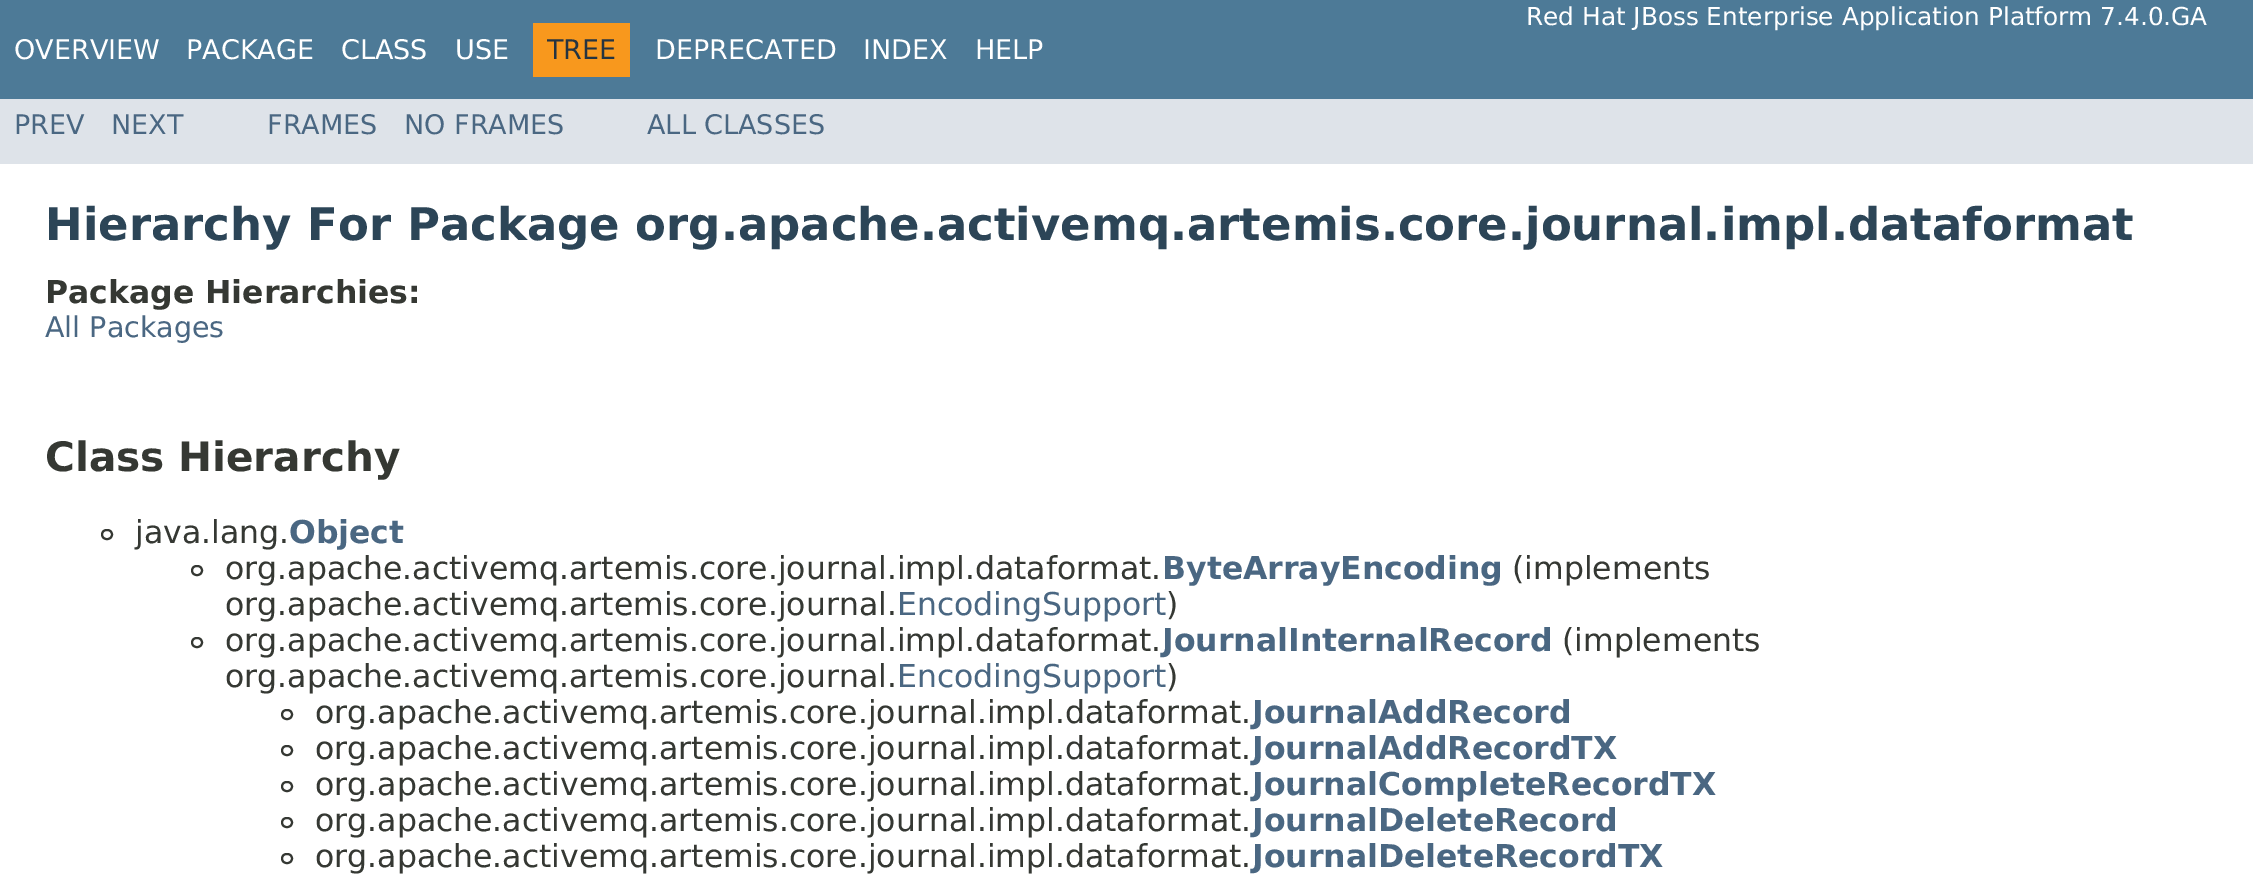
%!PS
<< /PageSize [2253 885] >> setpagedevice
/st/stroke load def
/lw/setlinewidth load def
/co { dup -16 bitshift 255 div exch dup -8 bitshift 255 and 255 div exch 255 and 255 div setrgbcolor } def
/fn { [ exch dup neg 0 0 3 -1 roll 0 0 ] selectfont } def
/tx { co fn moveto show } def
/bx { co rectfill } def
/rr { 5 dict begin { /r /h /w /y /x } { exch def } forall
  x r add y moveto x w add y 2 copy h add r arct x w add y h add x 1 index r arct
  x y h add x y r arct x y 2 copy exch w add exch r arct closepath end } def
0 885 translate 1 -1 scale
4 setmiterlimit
0 0 2253 885 16#FFFFFF bx
0 0 2253 99 16#4D7A97 bx
533 23 97 54 16#F8981D bx
0 99 2253 65 16#DEE3E9 bx
16#353833 co
2 lw
102 530 10 9 4.5 rr st
192 566 10 9 4.5 rr st
192 638 10 9 4.5 rr st
282 710 10 9 4.5 rr st
282 746 10 9 4.5 rr st
282 782 10 9 4.5 rr st
282 818 10 9 4.5 rr st
282 854 10 9 4.5 rr st
(Red Hat JBoss Enterprise Application Platform 7.4.0.GA) 1526 25 /DejaVuSans-Regular 24.75 16#FFFFFF tx
(OVERVIEW) 14 59 /DejaVuSans-Regular 27 16#FFFFFF tx
(PACKAGE) 186 59 /DejaVuSans-Regular 27 16#FFFFFF tx
(CLASS) 341 59 /DejaVuSans-Regular 27 16#FFFFFF tx
(USE) 455 59 /DejaVuSans-Regular 27 16#FFFFFF tx
(TREE) 547 59 /DejaVuSans-Regular 27 16#253441 tx
(DEPRECATED) 655 59 /DejaVuSans-Regular 27 16#FFFFFF tx
(INDEX) 863 59 /DejaVuSans-Regular 27 16#FFFFFF tx
(HELP) 975 59 /DejaVuSans-Regular 27 16#FFFFFF tx
(PREV) 14 134 /DejaVuSans-Regular 27 16#4A6782 tx
(NEXT) 111 134 /DejaVuSans-Regular 27 16#4A6782 tx
(FRAMES) 267 134 /DejaVuSans-Regular 27 16#4A6782 tx
(NO FRAMES) 404 134 /DejaVuSans-Regular 27 16#4A6782 tx
(ALL CLASSES) 647 134 /DejaVuSans-Regular 27 16#4A6782 tx
(Hierarchy For Package org.apache.activemq.artemis.core.journal.impl.dataformat) 45 240 /DejaVuSans-Bold 45 16#2C4557 tx
(Package Hierarchies:) 45 303 /DejaVuSans-Bold 31.5 16#353833 tx
(All Packages) 45 337 /DejaVuSans-Regular 28.5 16#4A6782 tx
(Class Hierarchy) 45 471 /DejaVuSans-Bold 40.5 16#353833 tx
(java.lang.) 135 543 /DejaVuSans-Regular 31.5 16#353833 tx
(Object) 289 543 /DejaVuSans-Bold 31.5 16#4A6782 tx
(org.apache.activemq.artemis.core.journal.impl.dataformat.) 225 579 /DejaVuSans-Regular 31.5 16#353833 tx
(ByteArrayEncoding) 1162 579 /DejaVuSans-Bold 31.5 16#4A6782 tx
(\(implements) 1512 579 /DejaVuSans-Regular 31.5 16#353833 tx
(org.apache.activemq.artemis.core.journal.) 225 615 /DejaVuSans-Regular 31.5 16#353833 tx
(EncodingSupport) 897 615 /DejaVuSans-Regular 31.5 16#4A6782 tx
(\)) 1166 615 /DejaVuSans-Regular 31.5 16#353833 tx
(org.apache.activemq.artemis.core.journal.impl.dataformat.) 225 651 /DejaVuSans-Regular 31.5 16#353833 tx
(JournalInternalRecord) 1162 651 /DejaVuSans-Bold 31.5 16#4A6782 tx
(\(implements) 1562 651 /DejaVuSans-Regular 31.5 16#353833 tx
(org.apache.activemq.artemis.core.journal.) 225 687 /DejaVuSans-Regular 31.5 16#353833 tx
(EncodingSupport) 897 687 /DejaVuSans-Regular 31.5 16#4A6782 tx
(\)) 1166 687 /DejaVuSans-Regular 31.5 16#353833 tx
(org.apache.activemq.artemis.core.journal.impl.dataformat.) 315 723 /DejaVuSans-Regular 31.5 16#353833 tx
(JournalAddRecord) 1252 723 /DejaVuSans-Bold 31.5 16#4A6782 tx
(org.apache.activemq.artemis.core.journal.impl.dataformat.) 315 759 /DejaVuSans-Regular 31.5 16#353833 tx
(JournalAddRecordTX) 1252 759 /DejaVuSans-Bold 31.5 16#4A6782 tx
(org.apache.activemq.artemis.core.journal.impl.dataformat.) 315 795 /DejaVuSans-Regular 31.5 16#353833 tx
(JournalCompleteRecordTX) 1252 795 /DejaVuSans-Bold 31.5 16#4A6782 tx
(org.apache.activemq.artemis.core.journal.impl.dataformat.) 315 831 /DejaVuSans-Regular 31.5 16#353833 tx
(JournalDeleteRecord) 1252 831 /DejaVuSans-Bold 31.5 16#4A6782 tx
(org.apache.activemq.artemis.core.journal.impl.dataformat.) 315 867 /DejaVuSans-Regular 31.5 16#353833 tx
(JournalDeleteRecordTX) 1252 867 /DejaVuSans-Bold 31.5 16#4A6782 tx
showpage
